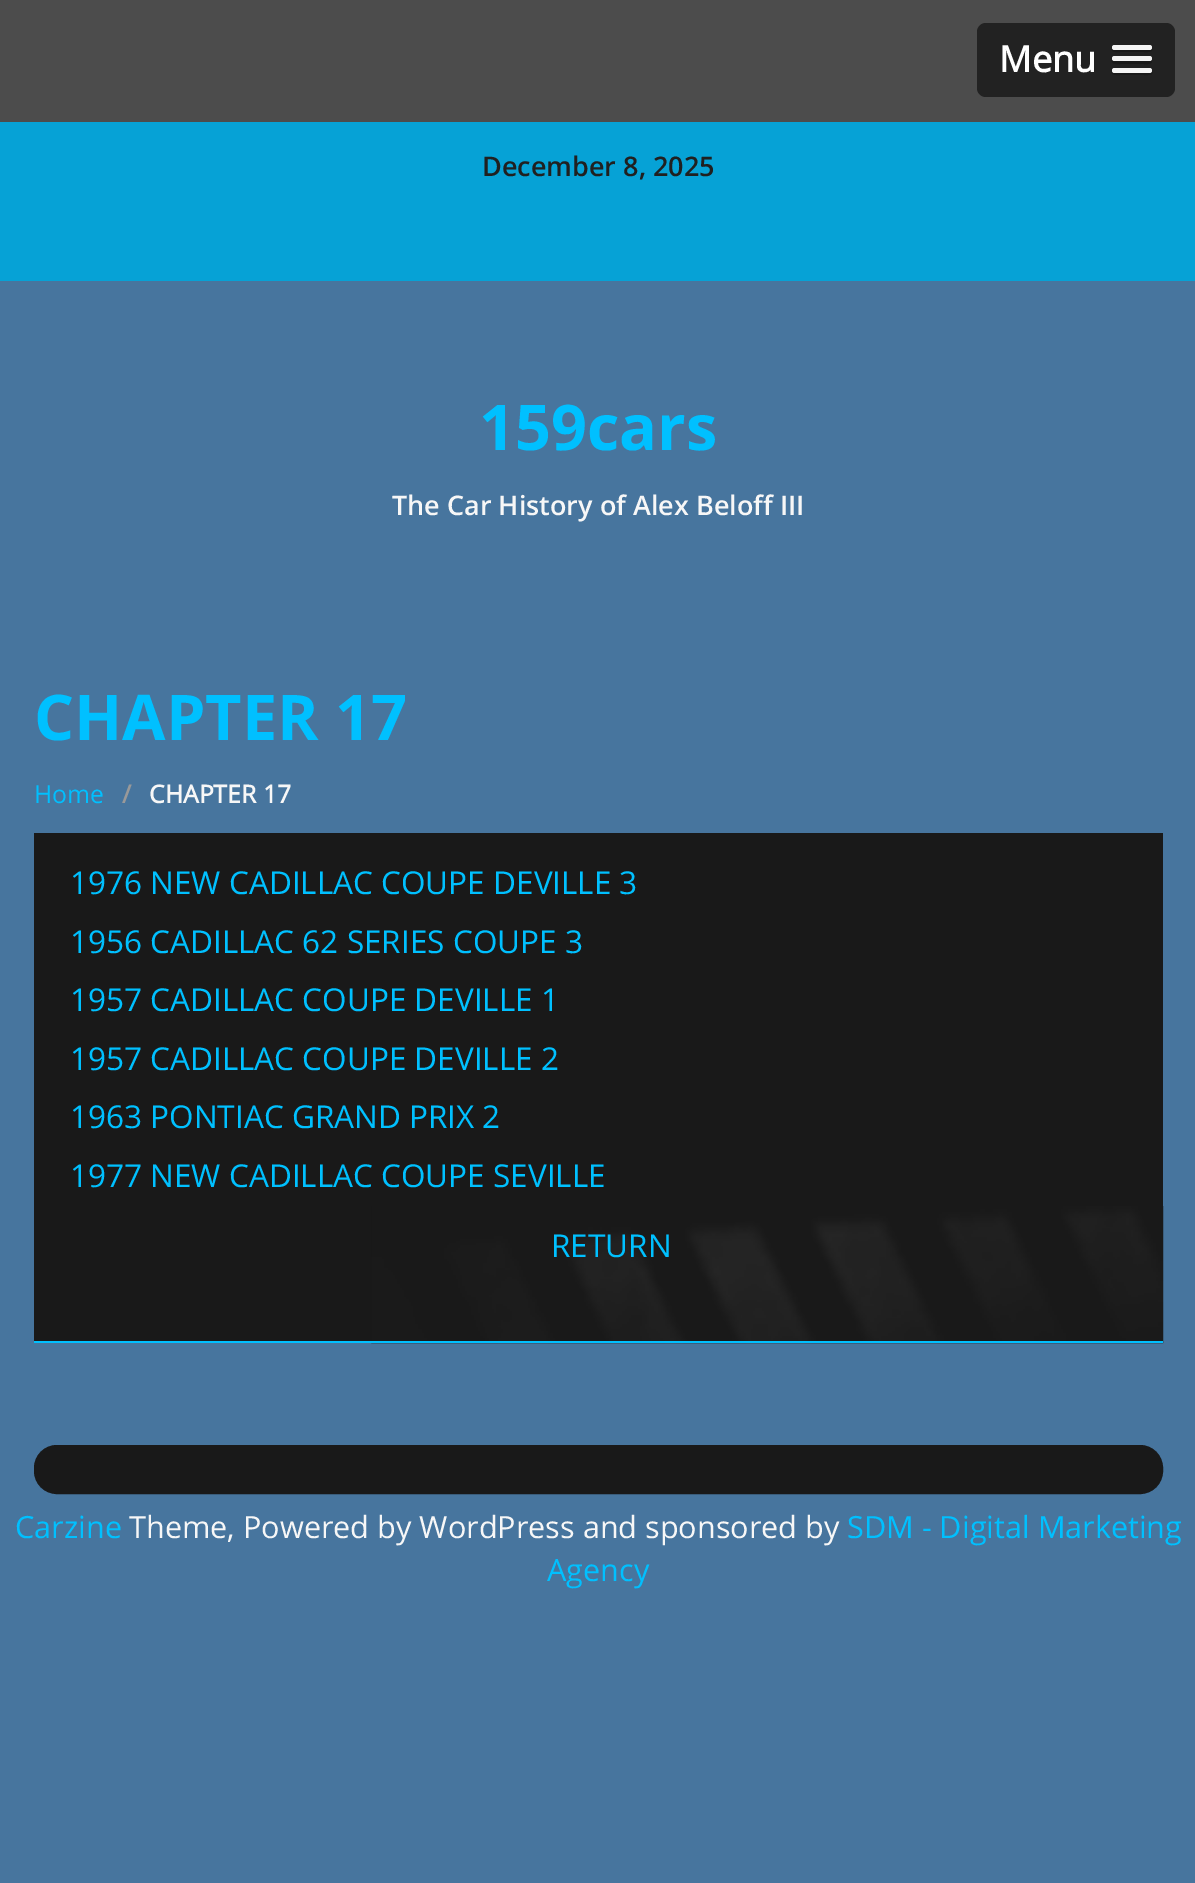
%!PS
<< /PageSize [1195 1883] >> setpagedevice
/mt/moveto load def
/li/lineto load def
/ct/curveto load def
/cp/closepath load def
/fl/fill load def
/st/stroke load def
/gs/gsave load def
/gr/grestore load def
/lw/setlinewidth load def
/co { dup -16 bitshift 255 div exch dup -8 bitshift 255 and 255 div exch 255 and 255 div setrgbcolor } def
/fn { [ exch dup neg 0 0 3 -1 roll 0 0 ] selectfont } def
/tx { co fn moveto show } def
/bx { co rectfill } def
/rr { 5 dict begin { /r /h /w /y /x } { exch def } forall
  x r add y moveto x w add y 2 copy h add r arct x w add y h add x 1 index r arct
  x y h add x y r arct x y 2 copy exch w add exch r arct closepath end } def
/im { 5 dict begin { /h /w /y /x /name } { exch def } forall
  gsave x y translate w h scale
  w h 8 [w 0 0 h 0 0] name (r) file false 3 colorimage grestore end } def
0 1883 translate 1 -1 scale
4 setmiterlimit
0 0 1195 1883 16#47759E bx
0 0 1195 122 16#4C4C4C bx
16#222222 co
977 23 198 74 9 rr fl
16#1A1A1A co
1112 49 mt 1111 53 1119 52 1120 52 ct 1144 52 li 1145 52 1154 53 1152 48 ct 1150 49 li 1146 50 1113 50 1112 49 ct cp fl
16#F5F5F5 co
1112 45 40 5 2.5 rr fl
16#1A1A1A co
1112 60 mt 1110 65 1120 64 1120 64 ct 1144 64 li 1144 64 1155 65 1151 60 ct 1150 61 li 1147 61 1114 61 1112 60 ct cp fl
16#F5F5F5 co
1112 56 40 5 2.5 rr fl
16#1A1A1A co
1112 71 mt 1110 76 1119 75 1120 75 ct 1144 75 li 1144 75 1155 76 1152 71 ct 1150 72 li 1146 72 1114 73 1112 71 ct cp fl
16#F5F5F5 co
1112 68 40 5 2.5 rr fl
0 122 1195 159 16#06A2D6 bx
34 833 1129 508 16#191919 bx
(media/1.raw) 371 1206 793 138 im
34 1341 1129 2 16#00C0FF bx
16#191919 co
38.5 1449.5 1120 40 18.5 rr gs fl gr
9 lw
st
(Menu) 999 72 /OpenSans-Bold 36 16#FFFFFF tx
(December 8, 2025) 482 176 /OpenSans-SemiBold 27 16#202020 tx
(159cars) 479 450 /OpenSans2-Bold 63 16#00C0FF tx
(The Car History of Alex Beloff III) 392 515 /OpenSans-SemiBold 27 16#F7F7F7 tx
(CHAPTER 17) 34 740 /OpenSans2-Bold 63 16#00C0FF tx
(Home) 34 803 /OpenSans-Regular 24.75 16#00C0FF tx
(/) 122 803 /OpenSans-Bold 24.75 16#999999 tx
(CHAPTER 17) 149 803 /OpenSans-Bold 24.75 16#F7F7F7 tx
(1976 NEW CADILLAC COUPE DEVILLE 3) 70 894 /OpenSans-Regular 31.5 16#00C0FF tx
(1956 CADILLAC 62 SERIES COUPE 3) 70 953 /OpenSans-Regular 31.5 16#00C0FF tx
(1957 CADILLAC COUPE DEVILLE 1) 70 1011 /OpenSans-Regular 31.5 16#00C0FF tx
(1957 CADILLAC COUPE DEVILLE 2) 70 1070 /OpenSans-Regular 31.5 16#00C0FF tx
(1963 PONTIAC GRAND PRIX 2) 70 1128 /OpenSans-Regular 31.5 16#00C0FF tx
(1977 NEW CADILLAC COUPE SEVILLE) 70 1187 /OpenSans-Regular 31.5 16#00C0FF tx
(RETURN) 551 1257 /OpenSans-Regular 31.5 16#00C0FF tx
(Carzine) 15 1538 /OpenSans-Regular 30.6 16#00C0FF tx
(Theme, Powered by WordPress and sponsored by) 129 1538 /OpenSans-Regular 30.6 16#F7F7F7 tx
(SDM - Digital Marketing) 847 1538 /OpenSans-Regular 30.6 16#00C0FF tx
(Agency) 547 1581 /OpenSans-Regular 30.6 16#00C0FF tx
showpage
